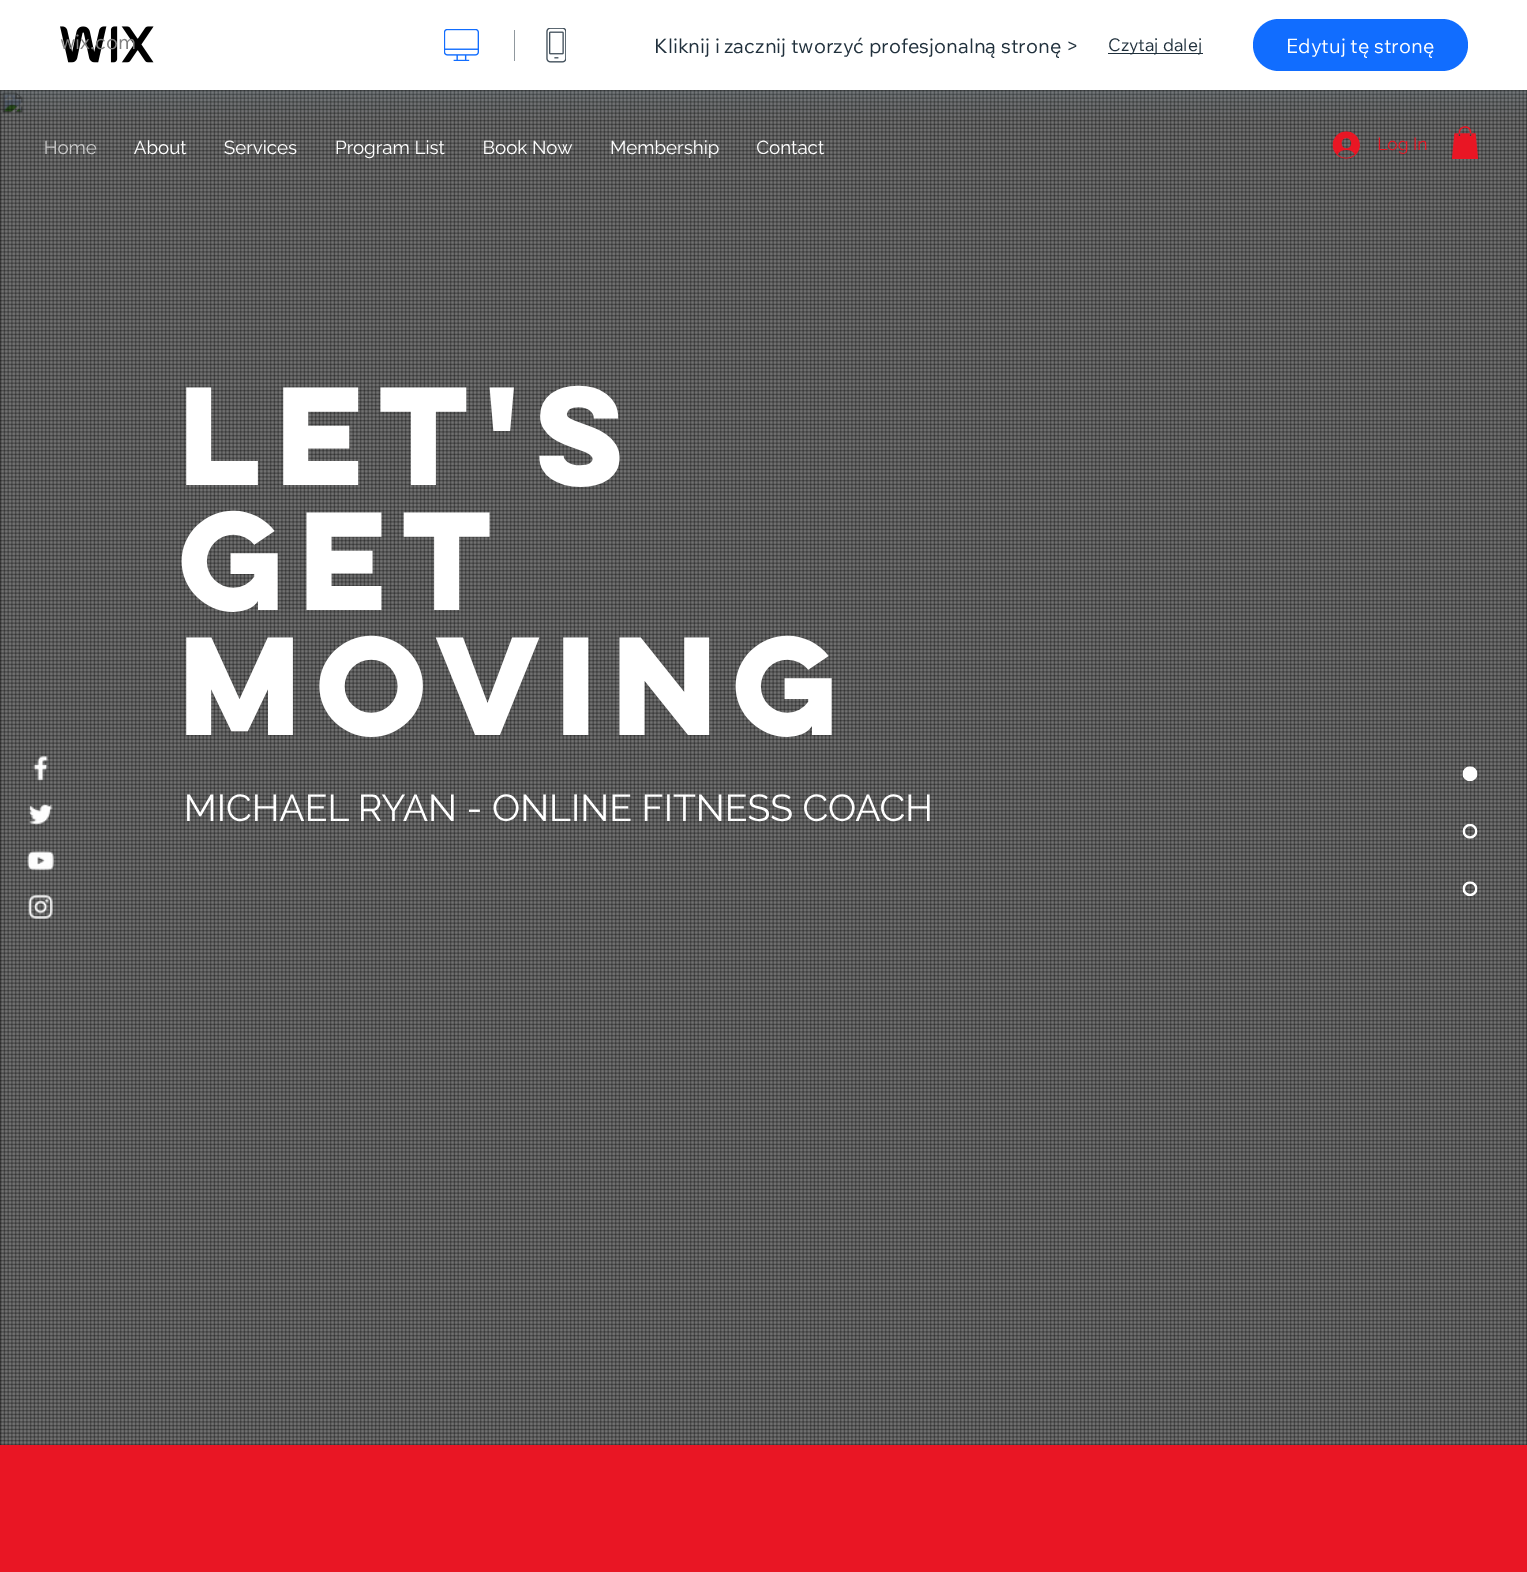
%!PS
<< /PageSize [1527 1572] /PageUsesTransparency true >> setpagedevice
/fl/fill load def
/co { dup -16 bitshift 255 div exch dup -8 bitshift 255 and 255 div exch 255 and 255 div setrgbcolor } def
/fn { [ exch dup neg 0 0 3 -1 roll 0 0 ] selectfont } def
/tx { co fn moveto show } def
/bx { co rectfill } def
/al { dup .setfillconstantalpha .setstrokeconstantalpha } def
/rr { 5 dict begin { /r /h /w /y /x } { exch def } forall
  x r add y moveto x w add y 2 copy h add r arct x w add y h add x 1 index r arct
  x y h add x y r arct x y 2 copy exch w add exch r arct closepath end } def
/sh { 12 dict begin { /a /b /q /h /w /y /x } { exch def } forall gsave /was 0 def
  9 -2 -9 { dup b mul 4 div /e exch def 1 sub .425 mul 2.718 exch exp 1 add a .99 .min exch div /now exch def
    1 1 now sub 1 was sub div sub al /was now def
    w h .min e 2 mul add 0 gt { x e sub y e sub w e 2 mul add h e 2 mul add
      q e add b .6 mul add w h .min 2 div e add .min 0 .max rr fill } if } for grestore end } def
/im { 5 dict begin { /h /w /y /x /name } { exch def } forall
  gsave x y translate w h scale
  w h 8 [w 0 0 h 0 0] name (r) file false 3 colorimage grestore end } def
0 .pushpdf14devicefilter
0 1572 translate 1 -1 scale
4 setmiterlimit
0 0 1527 1572 16#F9FAFA bx
(media/4.raw) 0 90 1527 1482 im
16#81A2B6 co
0 3 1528 90 0 11 .2 sh
0 0 1527 90 16#FFFFFF bx
(media/1.raw) 60 26 94 37 im
(media/2.raw) 444 29 35 32 im
514 30 1 31 16#90989E bx
(media/3.raw) 546 28 20 35 im
1108 53 95 1 16#20303C bx
16#116DFF co
1253 19 215 52 26 rr fl
(wix.com) 60 49 /WixMadeforText-Regular 20 16#818181 tx
(Kliknij i zacznij tworzyć profesjonalną stronę >) 654 53 /WixMadeforText-Regular 20 16#20303C tx
(Czytaj dalej) 1108 51 /WixMadeforText-Regular 17.5 16#20303C tx
(Edytuj tę stronę) 1286 53 /WixMadeforText-Regular 20 16#FFFFFF tx
.poppdf14devicefilter showpage
